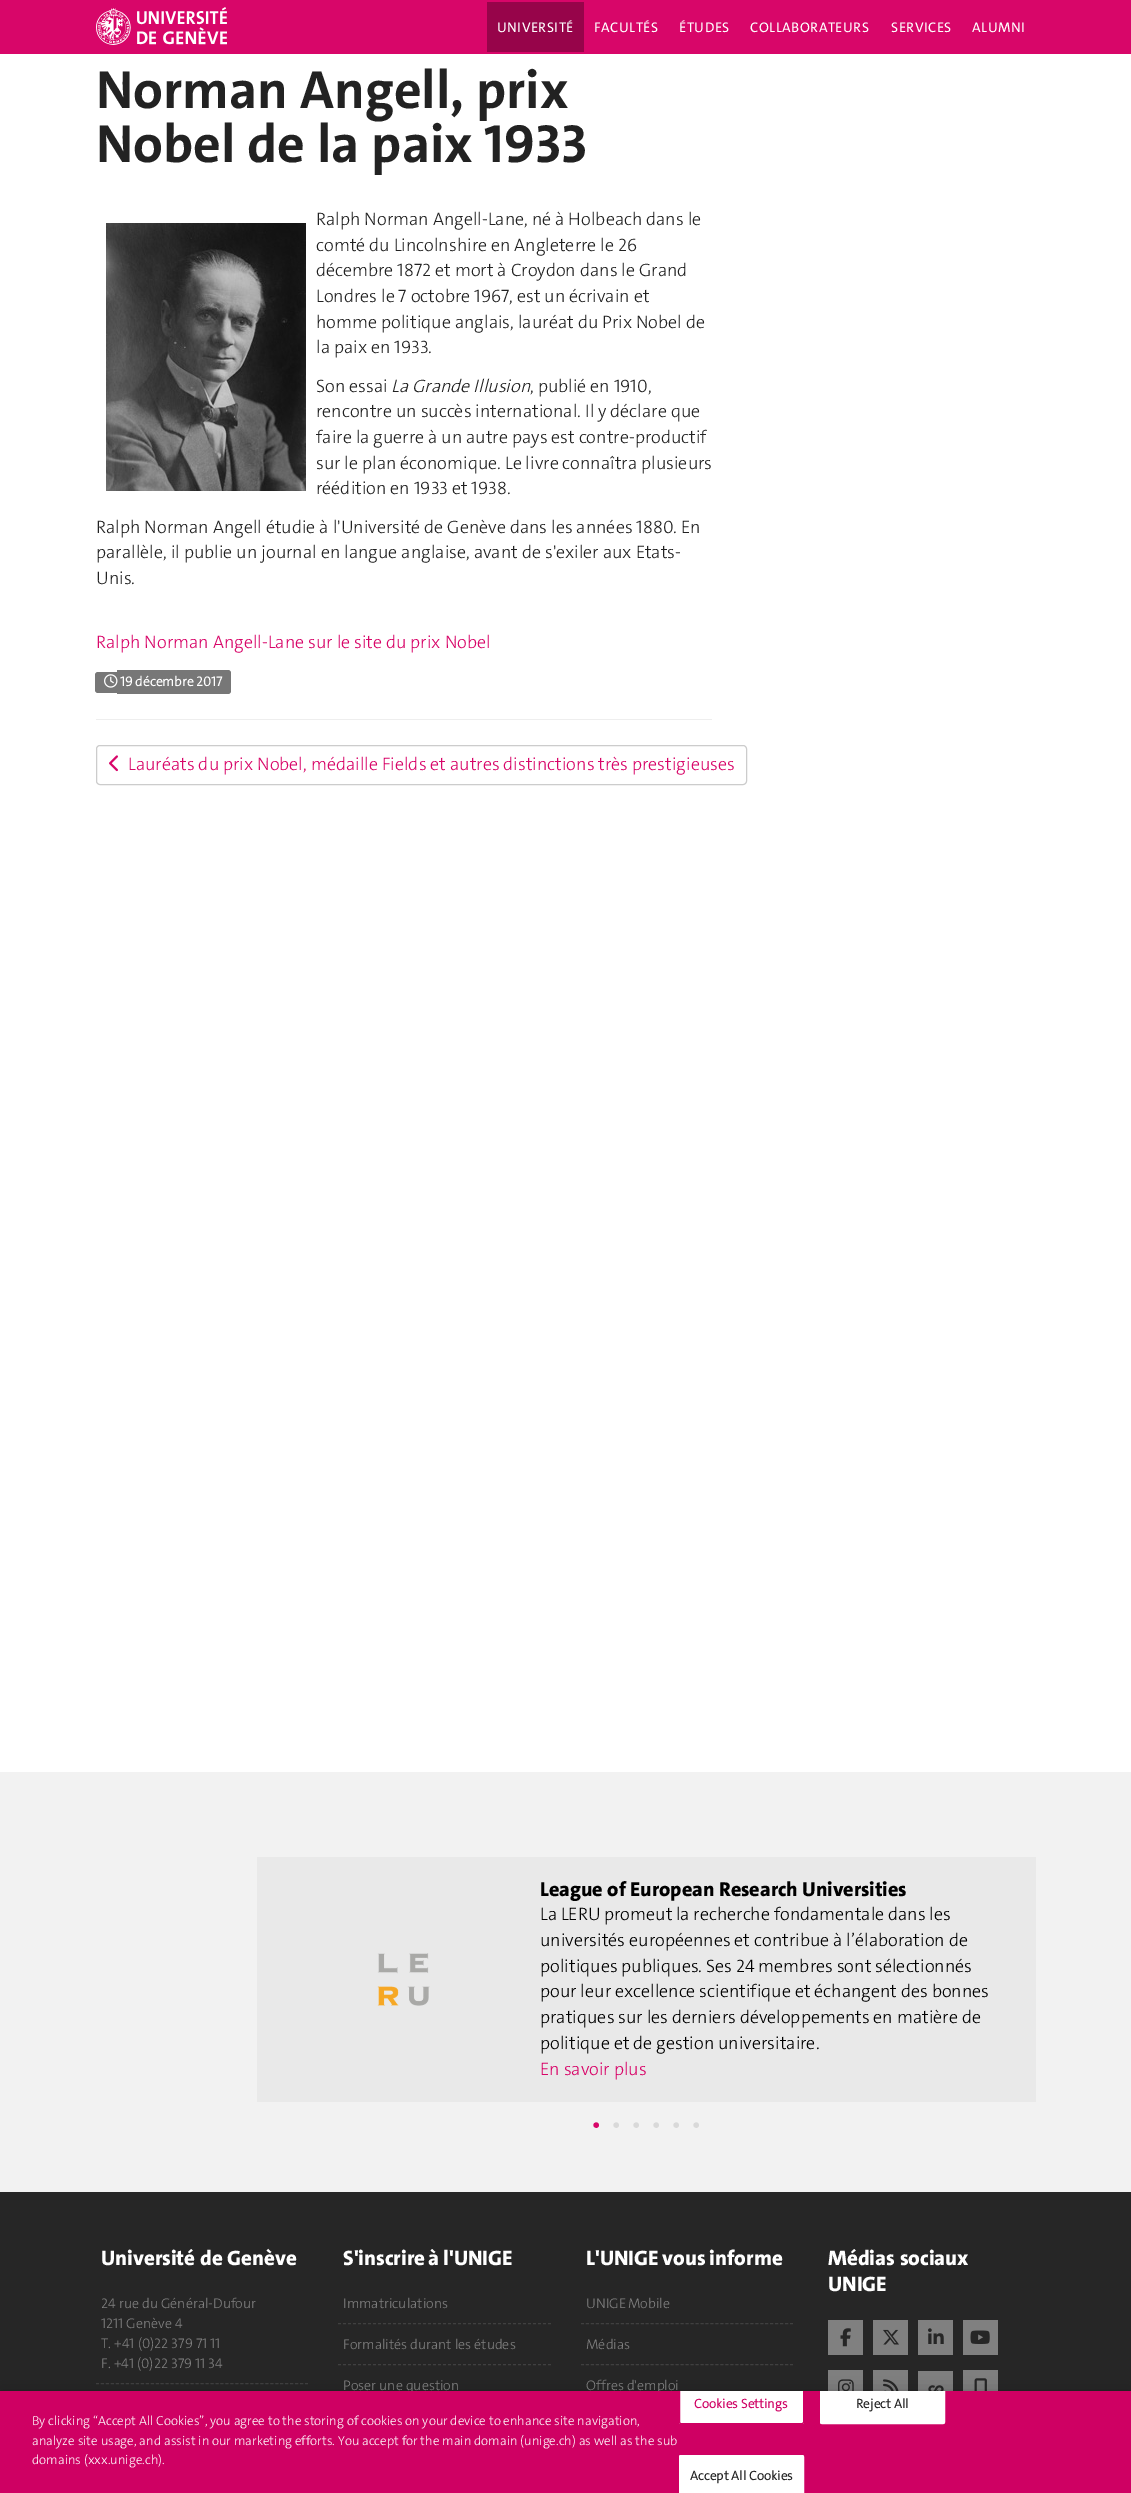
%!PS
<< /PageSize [1131 2493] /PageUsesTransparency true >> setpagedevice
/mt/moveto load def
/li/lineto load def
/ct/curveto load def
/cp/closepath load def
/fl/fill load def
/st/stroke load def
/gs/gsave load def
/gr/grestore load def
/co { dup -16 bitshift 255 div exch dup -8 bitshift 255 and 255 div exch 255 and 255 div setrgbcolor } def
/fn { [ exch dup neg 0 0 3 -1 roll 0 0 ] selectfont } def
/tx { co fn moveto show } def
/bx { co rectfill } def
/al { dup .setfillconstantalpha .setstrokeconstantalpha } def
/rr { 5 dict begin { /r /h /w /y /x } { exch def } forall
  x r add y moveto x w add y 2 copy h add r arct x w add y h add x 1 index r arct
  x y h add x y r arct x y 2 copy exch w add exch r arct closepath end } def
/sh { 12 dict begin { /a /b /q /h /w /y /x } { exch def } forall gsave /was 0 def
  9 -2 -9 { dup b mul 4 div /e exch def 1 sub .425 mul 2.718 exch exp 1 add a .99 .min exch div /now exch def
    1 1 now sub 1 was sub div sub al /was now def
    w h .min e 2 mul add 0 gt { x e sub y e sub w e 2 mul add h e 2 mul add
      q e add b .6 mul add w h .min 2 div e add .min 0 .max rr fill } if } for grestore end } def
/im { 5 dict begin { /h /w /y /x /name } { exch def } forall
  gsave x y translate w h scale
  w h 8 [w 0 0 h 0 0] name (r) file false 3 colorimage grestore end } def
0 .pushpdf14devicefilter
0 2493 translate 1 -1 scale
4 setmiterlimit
0 0 1131 2493 16#FFFFFF bx
0 0 1131 54 16#D80669 bx
(media/1.raw) 96 7 131 38 im
487 2 97 50 16#97044A bx
(media/2.raw) 106 223 200 268 im
16#777777 co
98 672 mt 117 672 li 117 693 li 98 693 li 96.5 693 95 691.5 95 690 ct 95 675 li 95 673.5 96.5 672 98 672 ct cp fl
117 670 mt 228 670 li 229.5 670 231 671.5 231 673 ct 231 691 li 231 692.5 229.5 694 228 694 ct 117 694 li cp fl
(media/3.raw) 104 674 14 14 im
96 719 616 1 16#EEEEEE bx
16#CCCCCC co
96.5 745.5 650 39 3.5 rr st
(media/4.raw) 109 755 9 17 im
0 1772 1131 420 16#F2F2F2 bx
257 1857 779 245 16#E9E9E9 bx
(media/5.raw) 377 1953 53 53 im
0 2192 1131 199 16#262626 bx
16#404040 co
[3 1.98] 0 setdash
96 2383.5 mt 308 2383.5 li st
[3 2] 0 setdash
338 2323.5 mt 551 2323.5 li st
338 2364.5 mt 551 2364.5 li st
[3 1.98] 0 setdash
581 2323.5 mt 793 2323.5 li st
581 2364.5 mt 793 2364.5 li st
828 2320 35 35 16#808080 bx
(media/6.raw) 840 2328 11 19 im
873 2320 35 35 16#808080 bx
(media/7.raw) 883 2329 16 16 im
918 2320 35 35 16#808080 bx
(media/8.raw) 928 2328 16 16 im
963 2320 35 35 16#808080 bx
(media/9.raw) 970 2330 20 14 im
828 2370 35 21 16#808080 bx
(media/10.raw) 838 2379 16 12 im
873 2370 35 21 16#808080 bx
(media/11.raw) 883 2379 16 12 im
918 2371 35 20 16#808080 bx
(media/12.raw) 928 2385 16 6 im
963 2370 35 21 16#808080 bx
(media/13.raw) 974 2378 13 13 im
16#000000 co
0 2391 1131 102 0 9 .2 sh
/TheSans-Regular 14 fn
16#FFFFFF co
497 32 mt .5 0 (UNIVERSITÉ) ashow
594 32 mt .5 0 (FACULTÉS) ashow
679 32 mt .5 0 (ÉTUDES) ashow
750 32 mt .5 0 (COLLABORATEURS) ashow
891 32 mt .5 0 (SERVICES) ashow
972 32 mt .5 0 (ALUMNI) ashow
(Norman Angell, prix) 96 108 /TheSans-Bold 54 16#222222 tx
(Nobel de la paix 1933) 96 162 /TheSans-Bold 54 16#222222 tx
(Ralph Norman Angell-Lane, né à Holbeach dans le) 316 225 /TheSans-Light 18 16#222222 tx
(comté du Lincolnshire en Angleterre le 26) 316 251 /TheSans-Light 18 16#222222 tx
(décembre 1872 et mort à Croydon dans le Grand) 316 276 /TheSans-Light 18 16#222222 tx
(Londres le 7 octobre 1967, est un écrivain et) 316 302 /TheSans-Light 18 16#222222 tx
(homme politique anglais, lauréat du Prix Nobel de) 316 328 /TheSans-Light 18 16#222222 tx
(la paix en 1933.) 316 353 /TheSans-Light 18 16#222222 tx
(Son essai) 316 392 /TheSans-Light 18 16#222222 tx
(La Grande Illusion) 391 392 /TheSans-LightItalic 18 16#222222 tx
(, publié en 1910,) 530 392 /TheSans-Light 18 16#222222 tx
(rencontre un succès international. Il y déclare que) 316 417 /TheSans-Light 18 16#222222 tx
(faire la guerre à un autre pays est contre-productif) 316 443 /TheSans-Light 18 16#222222 tx
(sur le plan économique. Le livre connaîtra plusieurs) 316 469 /TheSans-Light 18 16#222222 tx
(réédition en 1933 et 1938.) 316 494 /TheSans-Light 18 16#222222 tx
(Ralph Norman Angell étudie à l'Université de Genève dans les années 1880. En) 96 533 /TheSans-Light 18 16#222222 tx
(parallèle, il publie un journal en langue anglaise, avant de s'exiler aux Etats-) 96 558 /TheSans-Light 18 16#222222 tx
(Unis.) 96 584 /TheSans-Light 18 16#222222 tx
(Ralph Norman Angell-Lane sur le site du prix Nobel) 96 648 /TheSans-Light 18 16#D80669 tx
(19 décembre 2017) 120 686 /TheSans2-Bold 13.5 16#FFFFFF tx
(Lauréats du prix Nobel, médaille Fields et autres distinctions très prestigieuses) 128 770 /TheSans-Light 18 16#D80669 tx
(League of European Research Universities) 540 1896 /TheSans-ExtraBold 20.25 16#000000 tx
/TheSans-Light 18 fn
540 1920 mt -.25 0 32 (La LERU promeut la recherche fondamentale dans les) widthshow
(universités européennes et contribue à l’élaboration de) 540 1946 /TheSans-Light 18 16#000000 tx
(politiques publiques. Ses 24 membres sont sélectionnés) 540 1972 /TheSans-Light 18 16#000000 tx
(pour leur excellence scientifique et échangent des bonnes) 540 1997 /TheSans-Light 18 16#000000 tx
(pratiques sur les derniers développements en matière de) 540 2023 /TheSans-Light 18 16#000000 tx
(politique et de gestion universitaire.) 540 2049 /TheSans-Light 18 16#000000 tx
(En savoir plus) 540 2075 /TheSans-Light 18 16#D80669 tx
(•) 592 2133 /LiberationSerif-Regular 24 16#D80669 tx
(•) 612 2133 /LiberationSerif-Regular 24 16#D9D9D9 tx
(•) 632 2133 /LiberationSerif-Regular 24 16#D9D9D9 tx
(•) 652 2133 /LiberationSerif-Regular 24 16#D9D9D9 tx
(•) 672 2133 /LiberationSerif-Regular 24 16#D9D9D9 tx
(•) 692 2133 /LiberationSerif-Regular 24 16#D9D9D9 tx
(Université de Genève) 101 2265 /TheSans-ExtraBold 21 16#FFFFFF tx
(24 rue du Général-Dufour) 101 2308 /TheSans-Light 14 16#808080 tx
(1211 Genève 4) 101 2328 /TheSans-Light 14 16#808080 tx
(T. +41 \(0\)22 379 71 11) 101 2348 /TheSans-Light 14 16#808080 tx
(F. +41 \(0\)22 379 11 34) 101 2368 /TheSans-Light 14 16#808080 tx
/TheSans-ExtraBold 21 fn
16#FFFFFF co
343 2265 mt -1 0 32 (S'inscrire à l'UNIGE) widthshow
(Immatriculations) 343 2308 /TheSans-Light 14 16#808080 tx
(Formalités durant les études) 343 2349 /TheSans-Light 14 16#808080 tx
(Poser une question) 343 2390 /TheSans-Light 14 16#808080 tx
/TheSans-ExtraBold 21 fn
16#FFFFFF co
586 2265 mt -1 0 32 (L'UNIGE vous informe) widthshow
/TheSans-Light 14 fn
16#808080 co
586 2308 mt -1 0 32 (UNIGE Mobile) widthshow
(Médias) 586 2349 /TheSans-Light 14 16#808080 tx
(Offres d'emploi) 586 2390 /TheSans-Light 14 16#808080 tx
(Médias sociaux) 828 2265 /TheSans-ExtraBold 21 16#FFFFFF tx
(UNIGE) 828 2291 /TheSans-ExtraBold 21 16#FFFFFF tx
0 2391 1131 102 16#CF0063 bx
(By clicking “Accept All Cookies”, you agree to the storing of cookies on your device to enhance site navigation,) 32 2425 /TheSans-Light 13 16#FFFFFF tx
(analyze site usage, and assist in our marketing efforts. You accept for the main domain \(unige.ch\) as well as the sub) 32 2445 /TheSans-Light 13 16#FFFFFF tx
(domains \(xxx.unige.ch\).) 32 2464 /TheSans-Light 13 16#FFFFFF tx
679 2391 mt 804 2391 li 804 2422 li 804 2423 803 2424 802 2424 ct 681 2424 li 680 2424 679 2423 679 2422 ct cp fl
gs
0 2391 1131 102 rectclip
16#CF0063 co
[] 0 setdash
679.5 2382.5 124 41 1.5 rr st
gr
/TheSans2-Bold 13 fn
16#CF0063 co
694 2408 mt .1 0 (Cookies Settings) ashow
16#FFFFFF co
820 2391 mt 945 2391 li 945 2422 li 945 2423 944 2424 943 2424 ct 822 2424 li 821 2424 820 2423 820 2422 ct cp fl
gs
0 2391 1131 102 rectclip
[] 0 setdash
820.5 2382.5 124 41 1.5 rr st
gr
16#222222 co
856 2408 mt .1 0 (Reject All) ashow
16#FFFFFF co
681 2455 mt 802 2455 li 803 2455 804 2456 804 2457 ct 804 2493 li 679 2493 li 679 2457 li 679 2456 680 2455 681 2455 ct cp fl
[] 0 setdash
679.5 2455.5 124 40 1.5 rr st
16#222222 co
690 2480 mt .1 0 (Accept All Cookies) ashow
.poppdf14devicefilter showpage
